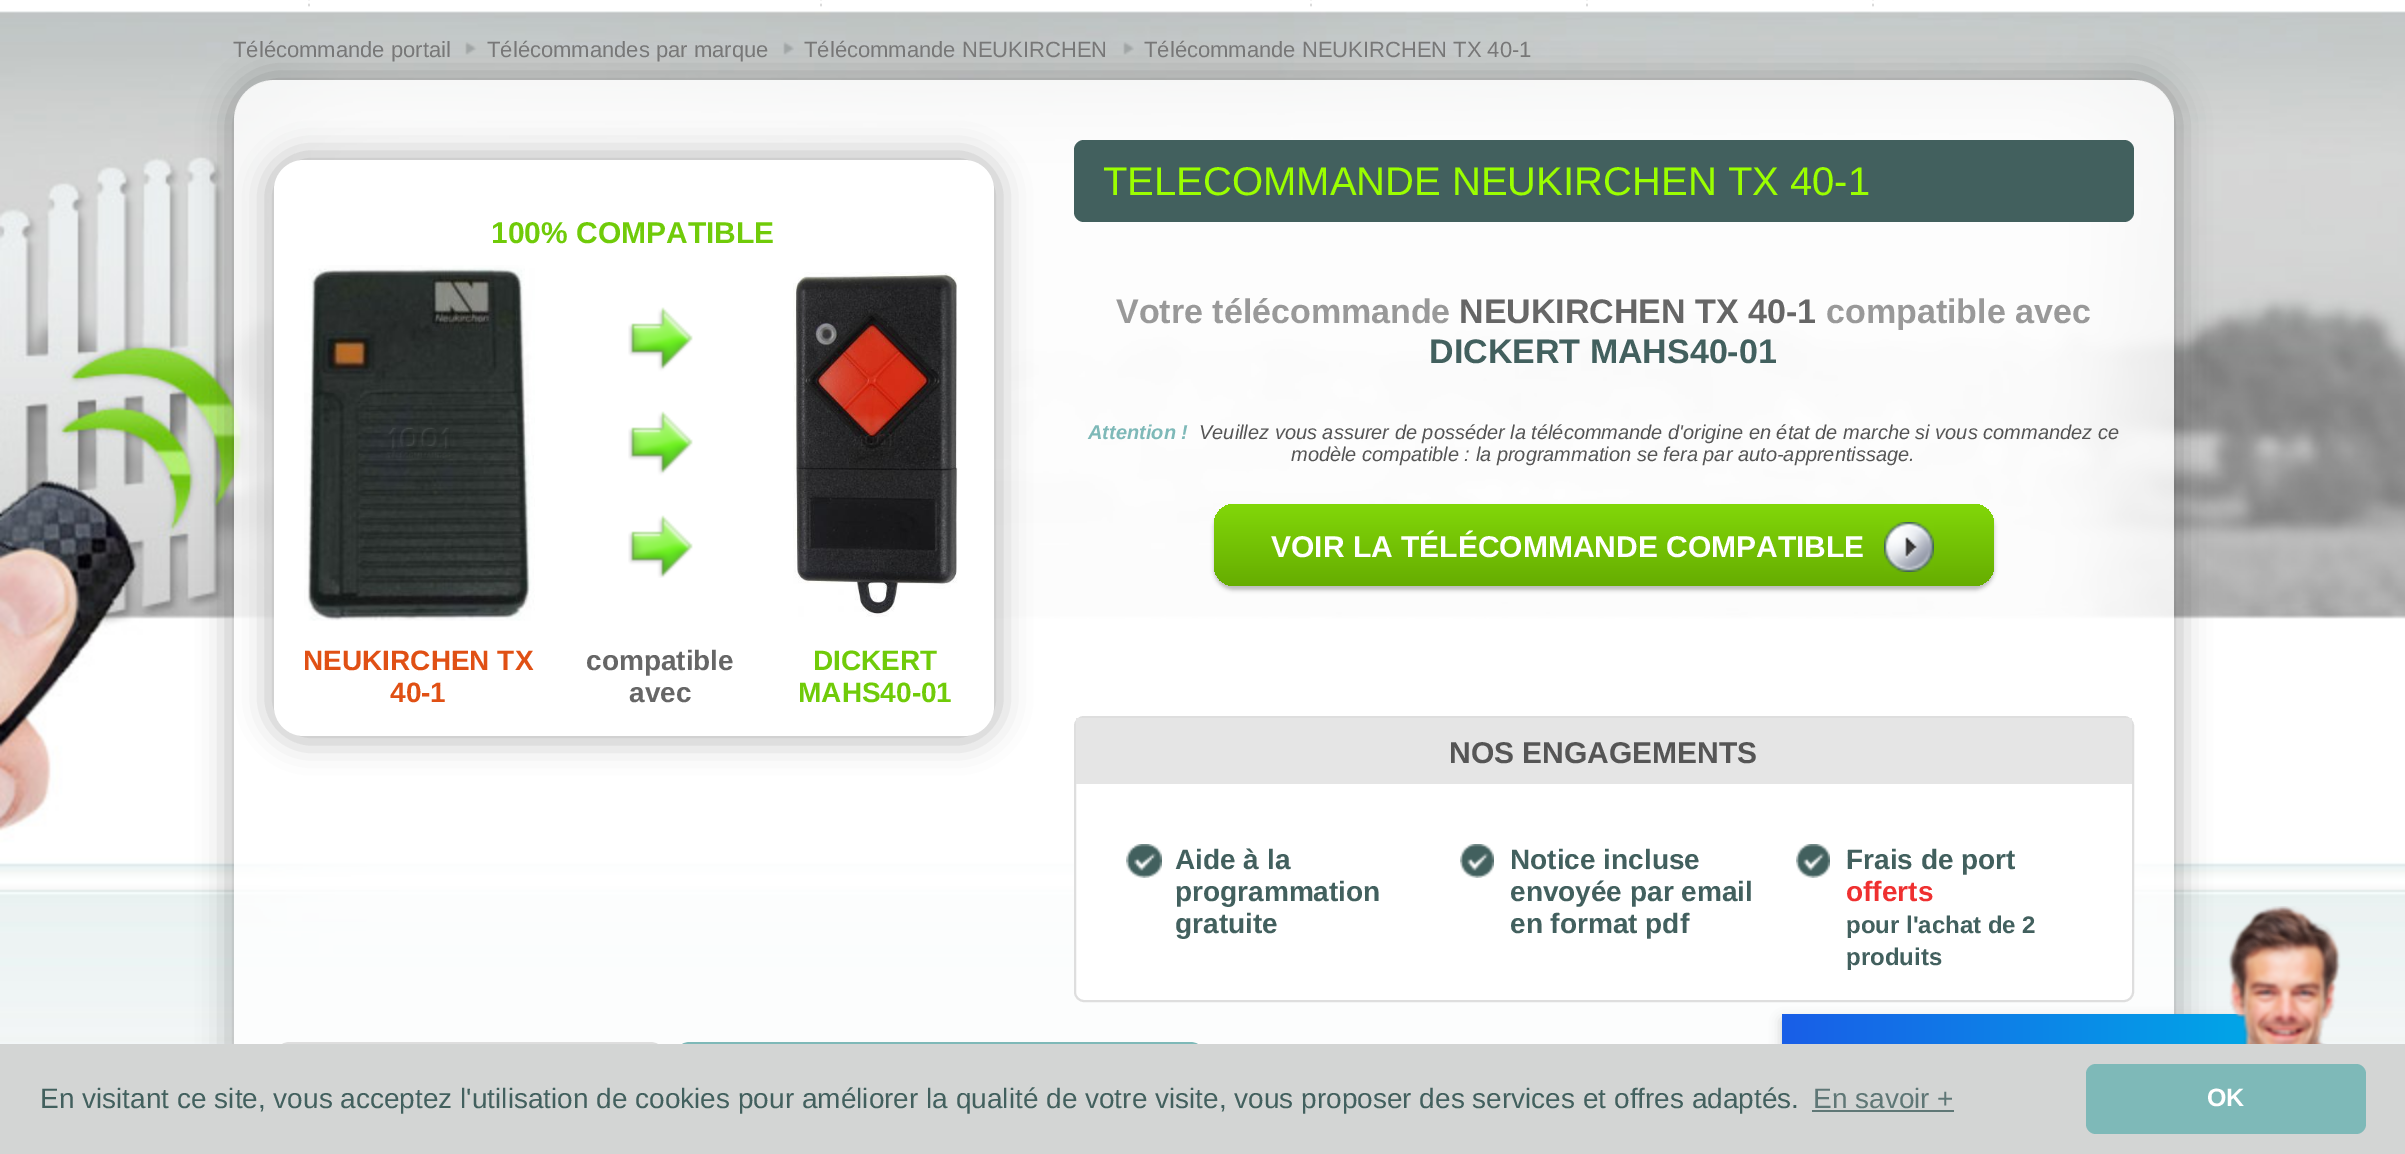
%!PS
<< /PageSize [2405 1154] /PageUsesTransparency true >> setpagedevice
/mt/moveto load def
/li/lineto load def
/ct/curveto load def
/cp/closepath load def
/fl/fill load def
/st/stroke load def
/gs/gsave load def
/gr/grestore load def
/lw/setlinewidth load def
/co { dup -16 bitshift 255 div exch dup -8 bitshift 255 and 255 div exch 255 and 255 div setrgbcolor } def
/fn { [ exch dup neg 0 0 3 -1 roll 0 0 ] selectfont } def
/tx { co fn moveto show } def
/bx { co rectfill } def
/al { dup .setfillconstantalpha .setstrokeconstantalpha } def
/rr { 5 dict begin { /r /h /w /y /x } { exch def } forall
  x r add y moveto x w add y 2 copy h add r arct x w add y h add x 1 index r arct
  x y h add x y r arct x y 2 copy exch w add exch r arct closepath end } def
/sh { 12 dict begin { /a /b /q /h /w /y /x } { exch def } forall gsave /was 0 def
  9 -2 -9 { dup b mul 4 div /e exch def 1 sub .425 mul 2.718 exch exp 1 add a .99 .min exch div /now exch def
    1 1 now sub 1 was sub div sub al /was now def
    w h .min e 2 mul add 0 gt { x e sub y e sub w e 2 mul add h e 2 mul add
      q e add b .6 mul add w h .min 2 div e add .min 0 .max rr fill } if } for grestore end } def
/im { 5 dict begin { /h /w /y /x /name } { exch def } forall
  gsave x y translate w h scale
  w h 8 [w 0 0 h 0 0] name (r) file false 3 colorimage grestore end } def
0 .pushpdf14devicefilter
0 1154 translate 1 -1 scale
4 setmiterlimit
0 0 2405 1154 16#FFFFFF bx
(media/1.raw) 308 0 2 7 im
(media/1.raw) 820 0 2 7 im
(media/1.raw) 1310 0 2 7 im
(media/1.raw) 1586 0 2 7 im
(media/1.raw) 1872 0 2 7 im
(media/2.raw) 0 11 2405 1033 im
gs
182 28 mt 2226 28 li 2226 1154 li 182 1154 li cp 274 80 mt 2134 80 li 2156 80 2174 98 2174 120 ct 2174 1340 li 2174 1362 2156 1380 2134 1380 ct 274 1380 li 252 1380 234 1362 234 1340 ct 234 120 li 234 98 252 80 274 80 ct cp eoclip newpath
16#000000 co
228 74 1952 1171 46 15 .25 sh
gr
(media/3.raw) 465 42 12 13 im
(media/4.raw) 783 42 11 13 im
(media/5.raw) 1123 42 11 13 im
0.8 al
234 80 1940 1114 40 rr fl
1 al
16#000000 co
268 154 732 588 36 15 .25 sh
16#FFFFFF co
274 160 720 576 30 rr fl
(media/6.raw) 304 265 231 356 im
(media/7.raw) 628 307 65 271 im
(media/8.raw) 793 272 165 345 im
16#42605E co
1074 140 1060 82 10 rr fl
16#000000 co
1214 508 780 82 20 2 .25 sh
gs 1214 504 780 82 20 rr clip newpath
<< /ShadingType 2 /ColorSpace /DeviceRGB /Coords [1604 504 1604 586] /Extend [true true] /Function << /FunctionType 2 /Domain [0 1] /C0 [.51 .843 .035] /C1 [.4 .678 .004] /N 1 >> >> shfill gr
(media/9.raw) 1884 522 50 50 im
16#FFFFFF co
1075 717 1058 284 9 rr gs fl gr
16#DEDEDE co
2 lw
st
1076 718 1056 66 16#E5E5E5 bx
(media/10.raw) 1126 844 36 34 im
(media/11.raw) 1460 844 34 34 im
(media/11.raw) 1796 844 34 34 im
16#DEDEDE co
290 1042 mt 650 1042 li 659 1042 666 1049 666 1058 ct 666 1128 li 274 1128 li 274 1058 li 274 1049 281 1042 290 1042 ct cp 290 1044 mt 650 1044 li 658 1044 664 1050 664 1058 ct 664 1128 li 276 1128 li 276 1058 li 276 1050 282 1044 290 1044 ct cp eofill
16#7EB9B8 co
690 1042 mt 1190 1042 li 1199 1042 1206 1049 1206 1058 ct 1206 1126 li 674 1126 li 674 1058 li 674 1049 681 1042 690 1042 ct cp fl
16#000000 co
1782 1020 484 124 0 6 .2 sh
gs 1782 1014 mt 2251 1014 li 2251 1044 li 1782 1044 li cp clip newpath
<< /ShadingType 2 /ColorSpace /DeviceRGB /Coords [2266 1076 1782 1076] /Extend [true true] /Function << /FunctionType 2 /Domain [0 1] /C0 [0 .659 .906] /C1 [.098 .369 .906] /N 1 >> >> shfill gr
(media/12.raw) 2227 906 114 138 im
0 1044 2405 110 16#D3D5D4 bx
1812 1110 142 2 16#5F7776 bx
16#7EB9B8 co
2086 1064 280 70 10 rr fl
(Télécommande portail) 233 57 /LiberationSans-Regular 22 16#777777 tx
(Télécommandes par marque) 487 57 /LiberationSans-Regular 22 16#777777 tx
(Télécommande NEUKIRCHEN) 804 57 /LiberationSans-Regular 22 16#777777 tx
(Télécommande NEUKIRCHEN TX 40-1) 1144 57 /LiberationSans-Regular 22 16#777777 tx
(100% COMPATIBLE) 491 243 /LiberationSans-Bold 30 16#70CB09 tx
(NEUKIRCHEN TX) 303 670 /LiberationSans-Bold 28 16#E05014 tx
(40-1) 390 702 /LiberationSans-Bold 28 16#E05014 tx
(compatible) 586 670 /LiberationSans-Bold 28 16#666666 tx
(avec) 629 702 /LiberationSans-Bold 28 16#666666 tx
(DICKERT) 813 670 /LiberationSans-Bold 28 16#70CB09 tx
(MAHS40-01) 798 702 /LiberationSans-Bold 28 16#70CB09 tx
(TELECOMMANDE NEUKIRCHEN TX 40-1) 1103 195 /LiberationSans-Regular 40 16#9BFF00 tx
(Votre télécommande) 1116 323 /LiberationSans-Bold 34 16#999999 tx
(NEUKIRCHEN TX 40-1) 1459 323 /LiberationSans-Bold 34 16#666666 tx
(compatible avec) 1826 323 /LiberationSans-Bold 34 16#999999 tx
(DICKERT MAHS40-01) 1429 363 /LiberationSans-Bold 34 16#42605E tx
(Attention !) 1088 439 /LiberationSans-BoldItalic 20 16#7EB9B8 tx
(Veuillez vous assurer de posséder la télécommande d'origine en état de marche si vous commandez ce) 1199 439 /LiberationSans-Italic 20 16#555555 tx
(modèle compatible : la programmation se fera par auto-apprentissage.) 1291 461 /LiberationSans-Italic 20 16#555555 tx
(VOIR LA TÉLÉCOMMANDE COMPATIBLE) 1271 557 /LiberationSans-Bold 30 16#FFFFFF tx
(NOS ENGAGEMENTS) 1449 763 /LiberationSans-Bold 30 16#555555 tx
(Aide à la) 1175 869 /LiberationSans-Bold 28 16#42605E tx
(programmation) 1175 901 /LiberationSans-Bold 28 16#42605E tx
(gratuite) 1175 933 /LiberationSans-Bold 28 16#42605E tx
(Notice incluse) 1510 869 /LiberationSans-Bold 28 16#42605E tx
(envoyée par email) 1510 901 /LiberationSans-Bold 28 16#42605E tx
(en format pdf) 1510 933 /LiberationSans-Bold 28 16#42605E tx
(Frais de port) 1846 869 /LiberationSans-Bold 28 16#42605E tx
(offerts) 1846 901 /LiberationSans-Bold 28 16#EF3030 tx
(pour l'achat de 2) 1846 933 /LiberationSans-Bold 24 16#42605E tx
(produits) 1846 965 /LiberationSans-Bold 24 16#42605E tx
(En visitant ce site, vous acceptez l'utilisation de cookies pour améliorer la qualité de votre visite, vous proposer des services et offres adaptés.) 40 1108 /LiberationSans-Regular 28 16#42605E tx
(En savoir +) 1813 1108 /LiberationSans-Regular 28 16#5F7776 tx
(OK) 2207 1106 /LiberationSans-Bold 25 16#FFFFFF tx
.poppdf14devicefilter showpage
